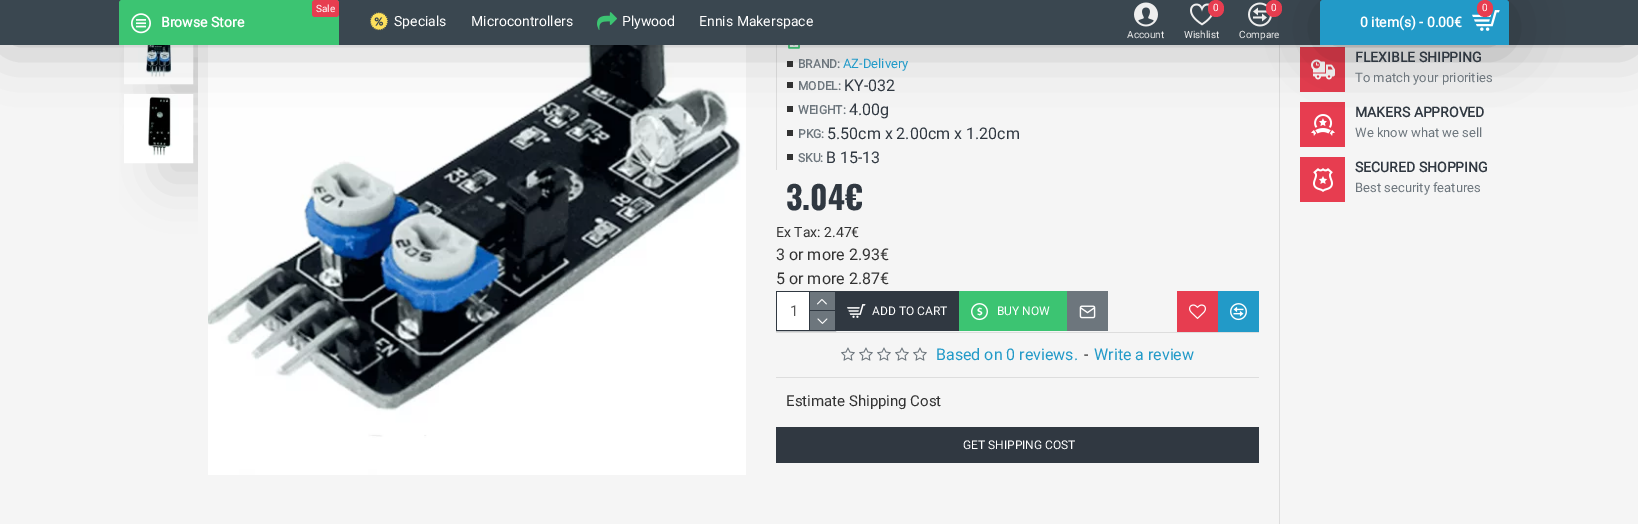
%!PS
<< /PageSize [1638 524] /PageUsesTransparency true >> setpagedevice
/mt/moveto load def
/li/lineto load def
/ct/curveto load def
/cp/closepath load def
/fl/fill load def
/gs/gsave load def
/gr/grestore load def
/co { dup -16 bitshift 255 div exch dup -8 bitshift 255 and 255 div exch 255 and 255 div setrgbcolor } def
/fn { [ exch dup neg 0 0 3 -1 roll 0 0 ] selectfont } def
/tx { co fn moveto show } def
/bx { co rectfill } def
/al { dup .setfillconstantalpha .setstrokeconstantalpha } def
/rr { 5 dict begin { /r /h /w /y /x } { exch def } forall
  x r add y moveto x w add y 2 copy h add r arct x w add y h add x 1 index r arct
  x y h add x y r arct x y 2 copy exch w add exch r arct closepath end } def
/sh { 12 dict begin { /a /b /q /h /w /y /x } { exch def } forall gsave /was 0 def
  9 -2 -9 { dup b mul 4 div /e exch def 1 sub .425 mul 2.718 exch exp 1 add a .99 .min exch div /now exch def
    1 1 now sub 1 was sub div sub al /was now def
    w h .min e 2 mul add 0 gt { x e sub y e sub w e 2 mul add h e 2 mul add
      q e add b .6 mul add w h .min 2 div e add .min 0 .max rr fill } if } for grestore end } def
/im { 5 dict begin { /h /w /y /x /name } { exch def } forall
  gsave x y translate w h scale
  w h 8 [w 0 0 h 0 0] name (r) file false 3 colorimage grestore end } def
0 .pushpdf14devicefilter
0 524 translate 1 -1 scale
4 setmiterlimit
0 0 1638 524 16#F5F5F5 bx
gs
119 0 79 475 rectclip
16#000000 co
164 51 49 48 0 25 .15 sh
gr
16#FFFFFF co
124.5 16.5 68 67 rectstroke
(media/8.raw) 125 45 67 38 im
gs
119 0 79 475 rectclip
16#000000 co
164 129 49 49 0 25 .15 sh
gr
124.5 94.5 68 68 rectstroke
(media/9.raw) 125 95 67 67 im
(media/10.raw) 208 45 538 430 im
776 45 1 125 16#DDDDDD bx
(media/11.raw) 788 45 12 4 im
787 61 6 6 16#333333 bx
787 82 6 6 16#333333 bx
787 106 6 6 16#333333 bx
787 130 6 6 16#333333 bx
1279 45 1 479 16#DDDDDD bx
1300 47 45 45 16#E73D50 bx
(media/20.raw) 1311 59 24 21 im
1300 102 45 45 16#E73D50 bx
(media/21.raw) 1311 114 24 22 im
16#000000 co
10 15 1618 25 0 30 .3 sh
0 0 1638 45 16#3A4750 bx
16#3CC472 co
122 0 mt 336 0 li 337.5 0 339 1.5 339 3 ct 339 45 li 119 45 li 119 3 li 119 1.5 120.5 0 122 0 ct cp fl
16#E73D50 co
312 0 27 17 3 rr fl
(media/1.raw) 131 13 20 21 im
(media/2.raw) 370 12 18 19 im
(media/3.raw) 597 12 20 18 im
(media/4.raw) 1134 2 24 25 im
(media/5.raw) 1190 3 23 23 im
1208 0 16 17 8 rr fl
(media/6.raw) 1248 2 24 25 im
1266 0 16 17 8 rr fl
16#000000 co
1330 15 169 25 0 30 .3 sh
16#229AC8 co
1323 0 mt 1506 0 li 1507.5 0 1509 1.5 1509 3 ct 1509 45 li 1320 45 li 1320 3 li 1320 1.5 1321.5 0 1323 0 ct cp fl
(media/7.raw) 1472 10 28 21 im
16#E73D50 co
1477 0 16 17 8 rr fl
787 154 6 6 16#333333 bx
16#303841 co
776.5 291.5 59 39 rectstroke
777 292 32 38 16#FFFFFF bx
809 292 1 38 16#303841 bx
810 292 25 18 16#6D767D bx
810 310 25 1 16#303841 bx
(media/12.raw) 817 299 10 6 im
810 311 25 19 16#6D767D bx
(media/13.raw) 817 318 11 6 im
836 291 123 40 16#303841 bx
(media/14.raw) 847 304 19 14 im
959 291 108 40 16#3CC472 bx
(media/15.raw) 971 303 17 18 im
1067 291 41 40 16#6D767D bx
(media/16.raw) 1079 305 17 14 im
1177 291 41 41 16#E73D50 bx
(media/17.raw) 1189 304 17 15 im
1218 291 41 41 16#229AC8 bx
(media/18.raw) 1230 303 17 18 im
776 332 483 1 16#DDDDDD bx
776 377 483 1 16#DDDDDD bx
(media/19.raw) 841 347 14 14 im
(media/19.raw) 859 347 14 14 im
(media/19.raw) 877 347 14 14 im
(media/19.raw) 895 347 14 14 im
(media/19.raw) 913 347 14 14 im
776 427 483 36 16#303841 bx
1300 157 45 45 16#E73D50 bx
(media/22.raw) 1313 168 20 24 im
(Sale) 316 12 /Roboto-Regular 10 16#FFFFFF tx
(Browse Store) 161 27 /Roboto-Bold 14 16#FFFFFF tx
(Specials) 394 26 /Roboto-Regular 14 16#FFFFFF tx
(Microcontrollers) 471 26 /Roboto-Regular 14 16#FFFFFF tx
(Plywood) 622 26 /Roboto-Regular 14 16#FFFFFF tx
(Ennis Makerspace) 699 26 /Roboto-Regular 14 16#FFFFFF tx
(Account) 1127 38 /Roboto-Regular 10 16#EEEEEE tx
(0) 1213 11 /Roboto-Regular 10 16#FFFFFF tx
(Wishlist) 1184 38 /Roboto-Regular 10 16#EEEEEE tx
(0) 1271 11 /Roboto-Regular 10 16#FFFFFF tx
(Compare) 1239 38 /Roboto-Regular 10 16#EEEEEE tx
(0) 1482 11 /Roboto-Regular 10 16#FFFFFF tx
(0 item\(s\) - 0.00€) 1360 27 /Roboto-Bold 14 16#FFFFFF tx
(BRAND:) 798 68 /Roboto-Bold 12 16#6D767D tx
(AZ-Delivery) 843 68 /Roboto-Regular 13 16#229AC8 tx
(MODEL:) 798 90 /Roboto-Bold 12 16#6D767D tx
(KY-032) 844 91 /Roboto-Regular 16 16#303841 tx
(WEIGHT:) 798 114 /Roboto-Bold 12 16#6D767D tx
(4.00g) 849 115 /Roboto-Regular 16 16#303841 tx
(PKG:) 798 138 /Roboto-Bold 12 16#6D767D tx
(5.50cm x 2.00cm x 1.20cm) 827 139 /Roboto-Regular 16 16#303841 tx
(SKU:) 798 162 /Roboto-Bold 12 16#6D767D tx
(B 15-13) 826 163 /Roboto-Regular 16 16#303841 tx
(3.04€) 786 210 /Oswald-Bold 32 16#303841 tx
(Ex Tax: 2.47€) 776 237 /Roboto-Regular 14 16#333333 tx
(3 or more 2.93€) 776 260 /Roboto-Regular 16 16#333333 tx
(5 or more 2.87€) 776 284 /Roboto-Regular 16 16#333333 tx
(1) 790 316 /Roboto-Regular 15 16#555555 tx
(ADD TO CART) 872 315 /Roboto-Regular 12 16#FFFFFF tx
(BUY NOW) 997 315 /Roboto-Regular 12 16#FFFFFF tx
(Based on 0 reviews.) 936 360 /Roboto-Regular 16 16#229AC8 tx
(-) 1084 360 /Roboto-Regular 16 16#333333 tx
(Write a review) 1094 360 /Roboto-Regular 16 16#229AC8 tx
(Estimate Shipping Cost) 786 406 /Roboto-Regular 15 16#333333 tx
(GET SHIPPING COST) 963 449 /Roboto-Regular 12 16#FFFFFF tx
(FLEXIBLE SHIPPING) 1355 62 /Roboto-Bold 14 16#303841 tx
(To match your priorities) 1355 82 /Roboto-Regular 13 16#6D767D tx
(MAKERS APPROVED) 1355 117 /Roboto-Bold 14 16#303841 tx
(We know what we sell) 1355 137 /Roboto-Regular 13 16#6D767D tx
(SECURED SHOPPING) 1355 172 /Roboto-Bold 14 16#303841 tx
(Best security features) 1355 192 /Roboto-Regular 13 16#6D767D tx
.poppdf14devicefilter showpage
